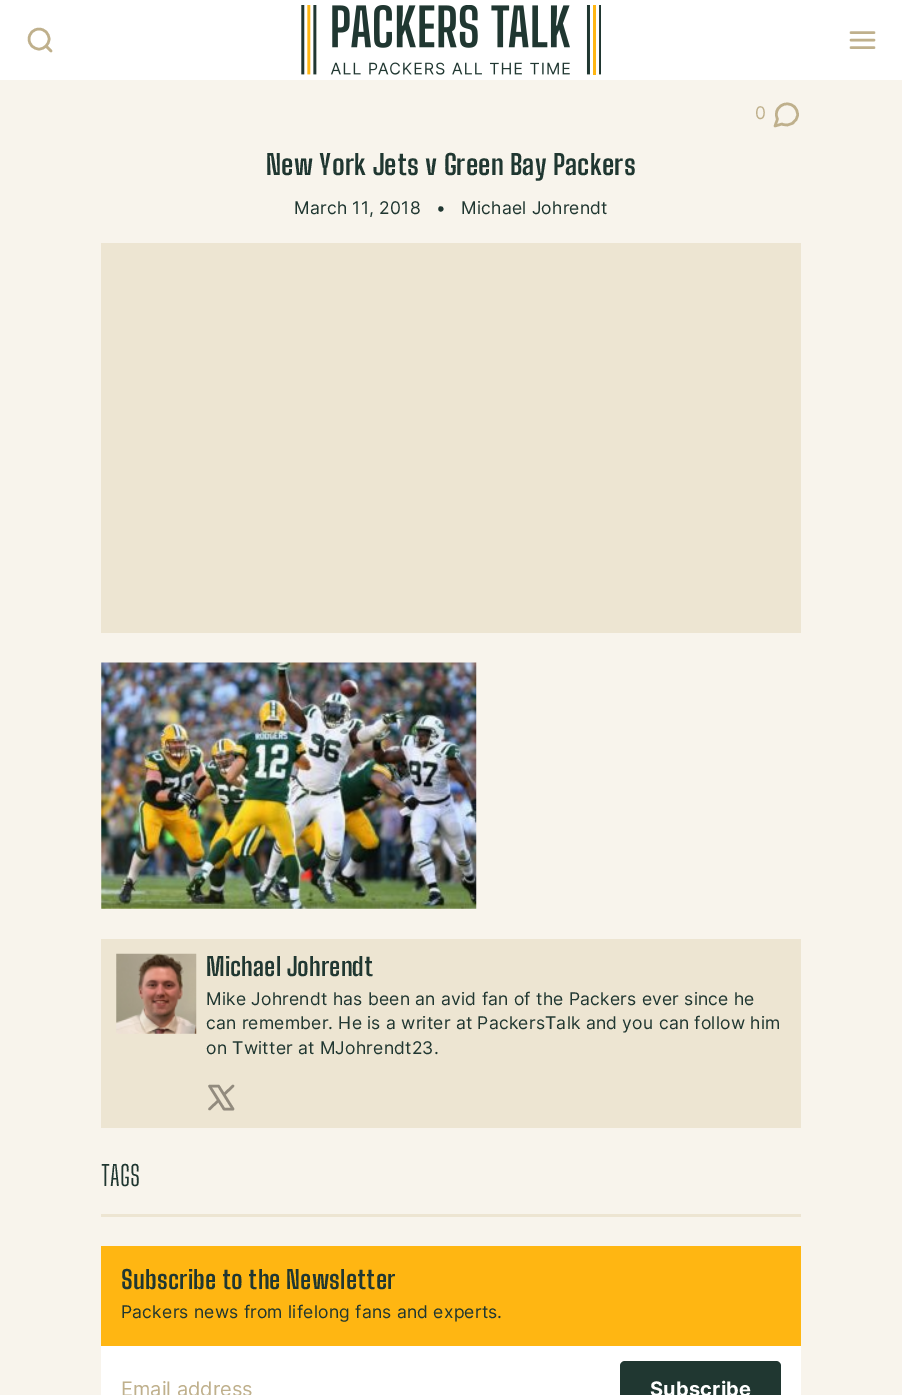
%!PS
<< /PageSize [902 1395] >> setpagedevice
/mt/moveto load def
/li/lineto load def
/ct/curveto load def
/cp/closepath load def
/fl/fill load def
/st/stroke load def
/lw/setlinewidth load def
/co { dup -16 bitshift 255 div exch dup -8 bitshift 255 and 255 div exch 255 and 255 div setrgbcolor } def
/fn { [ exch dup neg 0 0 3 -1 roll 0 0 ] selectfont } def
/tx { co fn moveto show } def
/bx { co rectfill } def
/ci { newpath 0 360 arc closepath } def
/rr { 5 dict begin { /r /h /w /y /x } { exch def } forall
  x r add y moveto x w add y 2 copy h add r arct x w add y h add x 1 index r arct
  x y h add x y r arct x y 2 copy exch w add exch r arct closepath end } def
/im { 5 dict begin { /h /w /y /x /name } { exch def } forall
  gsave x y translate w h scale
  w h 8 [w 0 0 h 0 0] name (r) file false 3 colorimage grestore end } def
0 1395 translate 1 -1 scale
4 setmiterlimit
0 0 902 1395 16#F8F4EC bx
0 0 902 80 16#FFFFFF bx
16#BFB08C co
2.5 lw
39 39 10 ci st
1 setlinecap
1 setlinejoin
51 51 mt 46 46 li st
(media/1.raw) 301 5 300 70 im
851 40 mt 874 40 li 851 32.5 mt 874 32.5 li 851 47.5 mt 874 47.5 li st
797.5 114.5 mt 797.5 122 789 127.5 782 124 ct 775 126 li 777.5 119 li 772 108.5 786 98.5 794.5 107 ct 796.5 109 797.5 111.5 797.5 114.5 ct cp st
101 243 700 390 16#EDE5D2 bx
(media/2.raw) 101 662 376 247 im
101 939 700 189 16#EDE5D2 bx
(media/3.raw) 116 953 81 81 im
16#928B7E co
233 1109 mt 218.5 1086 li 209.5 1086 li 224 1109 li cp 209.5 1109 mt 218.5 1100.5 li 224 1094.5 mt 233 1086 li st
101 1214 700 3 16#EDE5D2 bx
101 1246 700 100 16#FFB612 bx
101 1346 700 49 16#FFFFFF bx
16#203731 co
620 1361 161 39 5 rr fl
/Inter-Regular 17.5 fn
16#BFB08C co
755 119 mt .22 0 (0) ashow
/BigShouldersText-Bold 27.5 fn
16#203731 co
266 175 mt .22 0 (New York Jets v Green Bay Packers) ashow
/Inter-Regular 17.5 fn
294 214 mt .22 0 (March 11, 2018) ashow
436 214 mt .22 0 (•) ashow
461 214 mt .22 0 (Michael Johrendt) ashow
/BigShouldersText-Bold 25 fn
206 976 mt .22 0 (Michael Johrendt) ashow
/Inter-Regular 17.5 fn
206 1005 mt .22 0 (Mike Johrendt has been an avid fan of the Packers ever since he) ashow
206 1029 mt .22 0 (can remember. He is a writer at PackersTalk and you can follow him) ashow
206 1054 mt .22 0 (on Twitter at MJohrendt23.) ashow
/BigShouldersDisplay-Regular 27.5 fn
101 1186 mt .5 0 (TAGS) ashow
/BigShouldersText-Bold 25 fn
121 1289 mt .22 0 (Subscribe to the Newsletter) ashow
/Inter-Regular 17.5 fn
121 1318 mt .22 0 (Packers news from lifelong fans and experts.) ashow
(Email address) 121 1396 /Inter-Regular 20 16#BFB08C tx
/Inter-Bold 20 fn
16#FFFFFF co
650 1396 mt .22 0 (Subscribe) ashow
showpage
